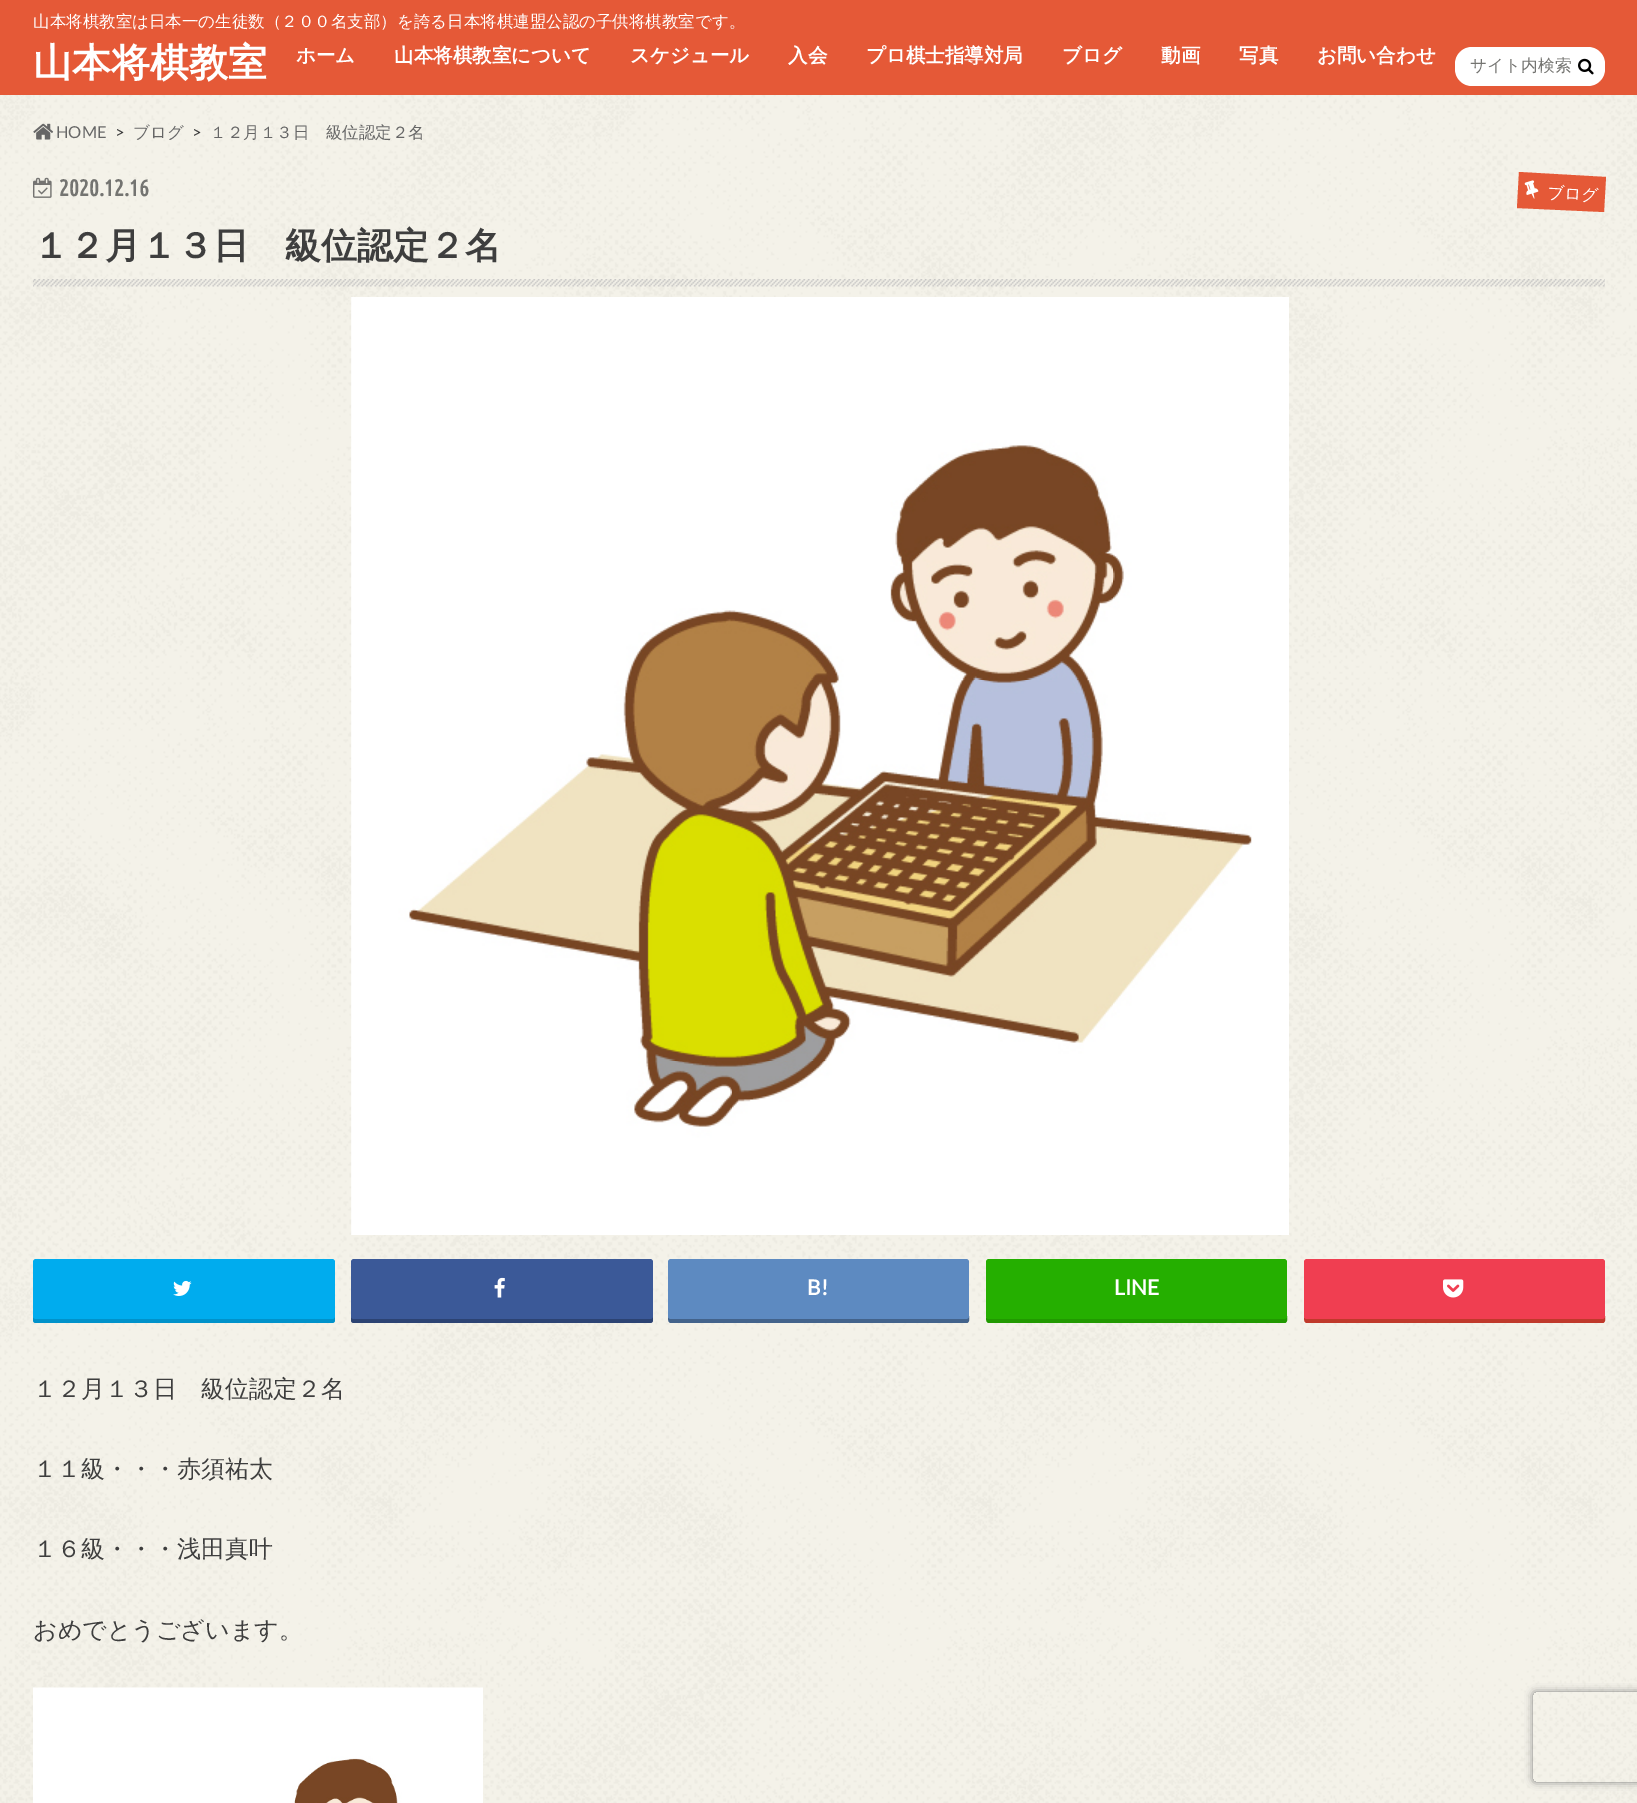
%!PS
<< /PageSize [1637 1803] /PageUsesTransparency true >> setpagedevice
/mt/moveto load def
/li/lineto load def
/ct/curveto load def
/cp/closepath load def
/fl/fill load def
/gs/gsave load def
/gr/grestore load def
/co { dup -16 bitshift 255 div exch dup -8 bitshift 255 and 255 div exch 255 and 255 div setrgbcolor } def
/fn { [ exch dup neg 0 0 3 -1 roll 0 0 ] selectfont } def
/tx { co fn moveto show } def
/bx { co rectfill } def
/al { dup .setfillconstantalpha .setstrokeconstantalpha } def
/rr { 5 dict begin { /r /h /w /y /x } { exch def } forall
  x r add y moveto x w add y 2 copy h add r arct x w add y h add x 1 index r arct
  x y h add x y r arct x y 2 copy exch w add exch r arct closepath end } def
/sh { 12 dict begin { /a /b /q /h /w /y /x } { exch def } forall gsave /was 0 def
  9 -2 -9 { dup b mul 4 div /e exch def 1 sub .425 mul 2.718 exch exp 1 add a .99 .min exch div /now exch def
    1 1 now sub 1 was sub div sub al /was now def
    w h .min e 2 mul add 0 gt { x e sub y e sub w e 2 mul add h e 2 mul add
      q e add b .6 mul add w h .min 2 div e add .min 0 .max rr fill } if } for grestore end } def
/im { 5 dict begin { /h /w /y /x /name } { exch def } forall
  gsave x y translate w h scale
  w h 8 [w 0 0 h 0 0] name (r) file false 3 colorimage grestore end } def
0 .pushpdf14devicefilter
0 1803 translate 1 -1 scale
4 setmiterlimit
0 0 1637 1803 16#FFFFFF bx
(media/1.raw) 0 95 1637 1708 im
0 0 1637 95 16#E55937 bx
16#FFFFFF co
1455 47 150 39 17 rr fl
(media/2.raw) 1578 58 16 17 im
(media/3.raw) 33 123 21 17 im
(media/4.raw) 33 177 19 21 im
16#E55937 co
1519 172 mt 1606 177 li 1604 212 li 1517 208 li cp fl
(media/5.raw) 1524 180 15 19 im
(media/6.raw) 33 279 1572 8 im
(media/7.raw) 351 297 938 938 im
16#0092CA co
33 1316 mt 33 1320 li 33 1322 34 1323 36 1323 ct 332 1323 li 334 1323 335 1322 335 1320 ct 335 1266 li 334 1264 li 334 1316 li 334 1317 333 1318 332 1318 ct 36 1318 li 34 1318 33 1317 33 1316 ct cp fl
16#00ACEE co
33 1259 302 60 3 rr fl
(media/8.raw) 173 1280 19 16 im
16#2C4373 co
351 1316 mt 351 1320 li 351 1322 352 1323 354 1323 ct 650 1323 li 652 1323 653 1322 653 1320 ct 653 1266 li 652 1264 li 652 1316 li 652 1317 651 1318 650 1318 ct 354 1318 li 352 1318 351 1317 351 1316 ct cp fl
16#3B5998 co
351 1259 302 60 3 rr fl
(media/9.raw) 494 1277 11 21 im
16#43638B co
668 1317 mt 668 1319 668 1323 671 1323 ct 967 1323 li 970 1322 969 1318 969 1316 ct 969 1317 968 1318 966 1318 ct 670 1318 li 669 1318 669 1318 668 1317 ct cp fl
16#5D8AC1 co
668 1259 301 60 3 rr fl
16#219900 co
986 1317 mt 986 1319 986 1323 989 1323 ct 1285 1323 li 1288 1322 1287 1318 1287 1316 ct 1287 1317 1286 1318 1284 1318 ct 988 1318 li 987 1318 987 1318 986 1317 ct cp fl
16#25AF00 co
986 1259 301 60 3 rr fl
16#C0392B co
1304 1317 mt 1304 1319 1304 1323 1307 1323 ct 1603 1323 li 1606 1322 1605 1318 1605 1316 ct 1605 1317 1604 1318 1602 1318 ct 1306 1318 li 1305 1318 1305 1318 1304 1317 ct cp fl
16#F03E51 co
1304 1259 301 60 3 rr fl
(media/10.raw) 1443 1279 21 19 im
(media/11.raw) 33 1687 450 116 im
gs
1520 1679 mt 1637 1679 li 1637 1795 li 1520 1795 li cp 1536 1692 mt 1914 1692 li 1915.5 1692 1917 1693.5 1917 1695 ct 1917 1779 li 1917 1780.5 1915.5 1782 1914 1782 ct 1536 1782 li 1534.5 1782 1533 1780.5 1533 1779 ct 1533 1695 li 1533 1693.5 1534.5 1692 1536 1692 ct cp eoclip newpath
16#808080 co
1533 1692 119 90 3 4 1 sh
gr
(山本将棋教室は日本一の生徒数（２００名支部）を誇る日本将棋連盟公認の子供将棋教室です。) 33 27 /WenQuanYiZenHei-Medium 16.5 16#FFFFFF tx
(山本将棋教室) 33 76 /WenQuanYiZenHei-Bold 39 16#FFFFFF tx
(ホーム) 296 62 /WenQuanYiZenHei-Bold 19.5 16#FFFFFF tx
(山本将棋教室について) 394 62 /WenQuanYiZenHei-Bold 19.5 16#FFFFFF tx
(スケジュール) 630 62 /WenQuanYiZenHei-Bold 19.5 16#FFFFFF tx
(入会) 788 62 /WenQuanYiZenHei-Bold 19.5 16#FFFFFF tx
(プロ棋士指導対局) 866 62 /WenQuanYiZenHei-Bold 19.5 16#FFFFFF tx
(ブログ) 1062 62 /WenQuanYiZenHei-Bold 19.5 16#FFFFFF tx
(動画) 1161 62 /WenQuanYiZenHei-Bold 19.5 16#FFFFFF tx
(写真) 1239 62 /WenQuanYiZenHei-Bold 19.5 16#FFFFFF tx
(お問い合わせ) 1317 62 /WenQuanYiZenHei-Bold 19.5 16#FFFFFF tx
(サイト内検索) 1470 71 /WenQuanYiZenHei-Medium 16.75 16#747471 tx
(HOME) 56 138 /Lato-Regular 16.5 16#666666 tx
(>) 115 138 /Lato-Regular 16.5 16#3E3E3E tx
(ブログ) 133 138 /WenQuanYiZenHei-Medium 16.5 16#666666 tx
(>) 192 138 /Lato-Regular 16.5 16#3E3E3E tx
(１２月１３日　級位認定２名) 210 138 /WenQuanYiZenHei-Medium 16.5 16#666666 tx
(2020.12.16) 59 196 /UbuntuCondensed-Bold 23 16#747471 tx
/WenQuanYiZenHei-Medium 16.75 fn
16#FFFFFF co
gs 1547 198 translate 3 rotate 0 0 mt (ブログ) show gr
(１２月１３日　級位認定２名) 33 258 /WenQuanYiZenHei-Bold 36 16#3E3E3E tx
(B!) 807 1295 /Lato-Bold 21 16#FFFFFF tx
(LINE) 1114 1295 /Lato-Bold 21 16#FFFFFF tx
(１２月１３日　級位認定２名) 33 1397 /WenQuanYiZenHei-Medium 24 16#3E3E3E tx
(１１級・・・赤須祐太) 33 1477 /WenQuanYiZenHei-Medium 24 16#3E3E3E tx
(１６級・・・浅田真叶) 33 1557 /WenQuanYiZenHei-Medium 24 16#3E3E3E tx
(おめでとうございます。) 33 1638 /WenQuanYiZenHei-Medium 24 16#3E3E3E tx
.poppdf14devicefilter showpage
